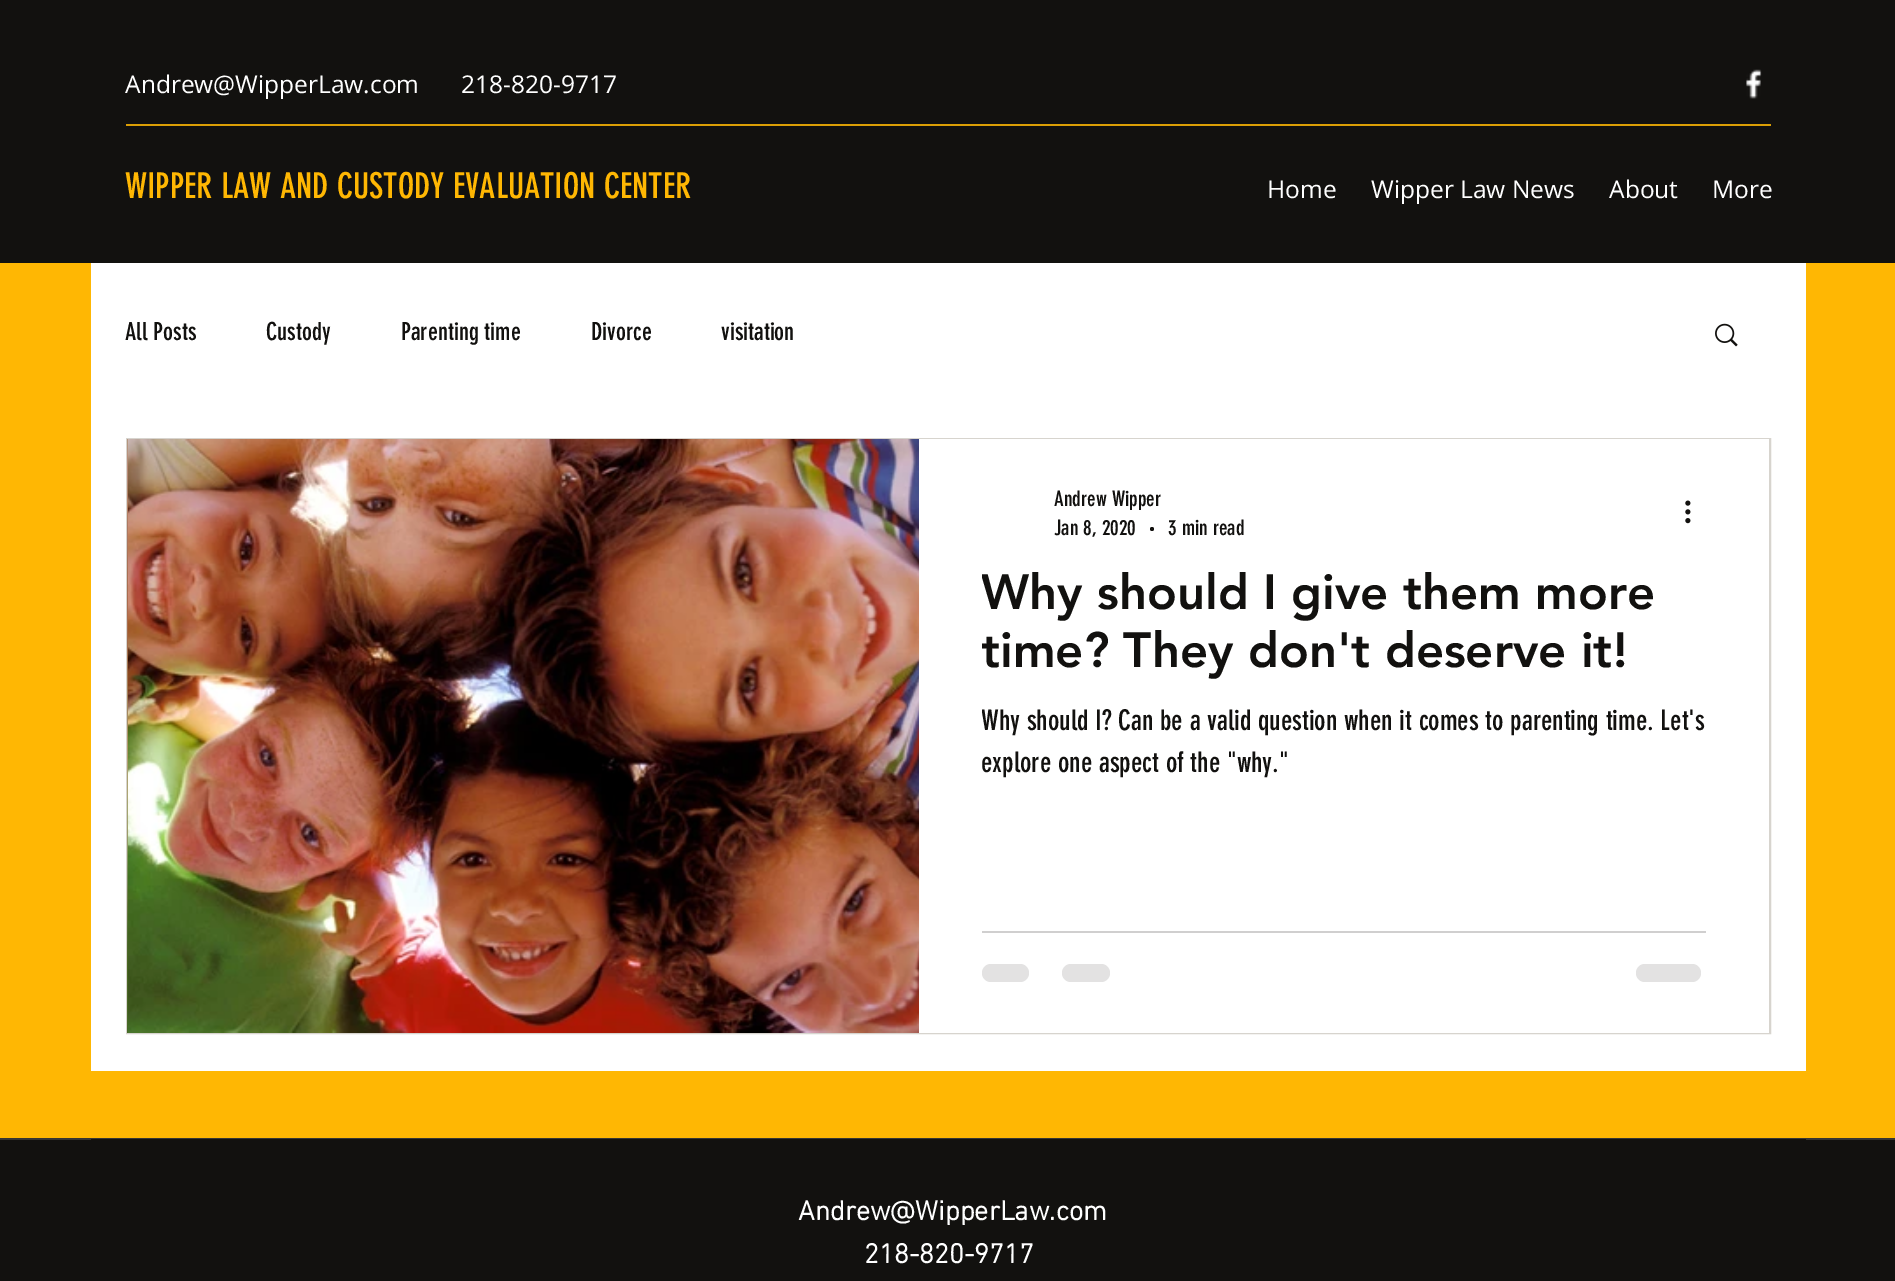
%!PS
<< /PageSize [1895 1281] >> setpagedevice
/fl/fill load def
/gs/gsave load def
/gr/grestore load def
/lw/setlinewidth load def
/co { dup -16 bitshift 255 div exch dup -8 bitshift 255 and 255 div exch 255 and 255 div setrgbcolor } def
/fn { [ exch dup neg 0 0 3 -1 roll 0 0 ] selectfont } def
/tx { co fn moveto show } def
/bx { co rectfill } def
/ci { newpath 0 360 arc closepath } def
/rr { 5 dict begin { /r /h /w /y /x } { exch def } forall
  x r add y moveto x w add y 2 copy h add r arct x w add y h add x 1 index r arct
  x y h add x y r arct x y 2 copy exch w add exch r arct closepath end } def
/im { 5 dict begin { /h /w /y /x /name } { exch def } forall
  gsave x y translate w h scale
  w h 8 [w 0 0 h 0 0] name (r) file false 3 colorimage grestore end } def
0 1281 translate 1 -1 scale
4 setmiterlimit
0 0 1895 1281 16#FFB703 bx
0 0 1895 263 16#12110F bx
(media/1.raw) 1746 69 16 30 im
126 124 1645 2 16#DB9E05 bx
91 263 1715 808 16#FFFFFF bx
(media/2.raw) 1715 323 23 24 im
16#D7D4CE co
2 lw
127 439 1643 594 rectstroke
(media/3.raw) 127 439 1 594 im
(media/4.raw) 128 439 791 594 im
919 439 850 594 16#FFFFFF bx
16#12110F co
1152 529 2 ci fl
(media/5.raw) 1685 500 6 24 im
982 931 724 2 16#D0CFCF bx
16#E3E2E2 co
982 964 47 18 9 rr fl
1062 964 48 18 9 rr fl
1636 964 65 18 9 rr fl
0 1140 1895 141 16#12110F bx
0 1138 1895 2 16#363533 bx
91 1139 1715 1 16#12110F bx
(Andrew@WipperLaw.com) 125 93 /OpenSans-Regular 24.5 16#FFFFFF tx
(218-820-9717) 461 93 /OpenSans-Regular 24.5 16#FFFFFF tx
(WIPPER LAW AND CUSTODY EVALUATION CENTER) 125 198 /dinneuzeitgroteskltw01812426-Regular 35 16#FFB703 tx
(Home) 1267 198 /OpenSans-Regular 24.5 16#FFFFFF tx
(Wipper Law News) 1371 198 /OpenSans-Regular 24.5 16#FFFFFF tx
(About) 1609 198 /OpenSans-Regular 24.5 16#FFFFFF tx
(More) 1712 198 /OpenSans-Regular 24.5 16#FFFFFF tx
(All Posts) 125 340 /dinneuzeitgroteskltw01812426-Regular 24.5 16#12110F tx
(Custody) 266 340 /dinneuzeitgroteskltw01812426-Regular 24.5 16#12110F tx
(Parenting time) 401 340 /dinneuzeitgroteskltw01812426-Regular 24.5 16#12110F tx
(Divorce) 591 340 /dinneuzeitgroteskltw01812426-Regular 24.5 16#12110F tx
(visitation) 721 340 /dinneuzeitgroteskltw01812426-Regular 24.5 16#12110F tx
(Andrew Wipper) 1054 506 /dinneuzeitgroteskltw01812426-Regular 21 16#12110F tx
(Jan 8, 2020) 1054 535 /dinneuzeitgroteskltw01812426-Regular 21 16#12110F tx
(3 min read) 1168 535 /dinneuzeitgroteskltw01812426-Regular 21 16#12110F tx
gs
982 564 724 115 rectclip
(Why should I give them more) 981 609 /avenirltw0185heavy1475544-Black 49 16#12110F tx
(time? They don't deserve it!) 981 667 /avenirltw0185heavy1475544-Black 49 16#12110F tx
gr
gs
982 700 724 84 rectclip
(Why should I?) 981 730 /dinneuzeitgroteskltw01812426-Regular 28 16#12110F tx
gr
(Can be a valid question when it comes to parenting time. Let's) 1118 730 /dinneuzeitgroteskltw01812426-Regular 28 16#12110F tx
(explore one aspect of the "why.") 981 772 /dinneuzeitgroteskltw01812426-Regular 28 16#12110F tx
(Andrew@WipperLaw.com) 798 1220 /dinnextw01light-Bold 28 16#FFFFFF tx
(218-820-9717) 864 1263 /dinnextw01light-Bold 28 16#FFFFFF tx
showpage
